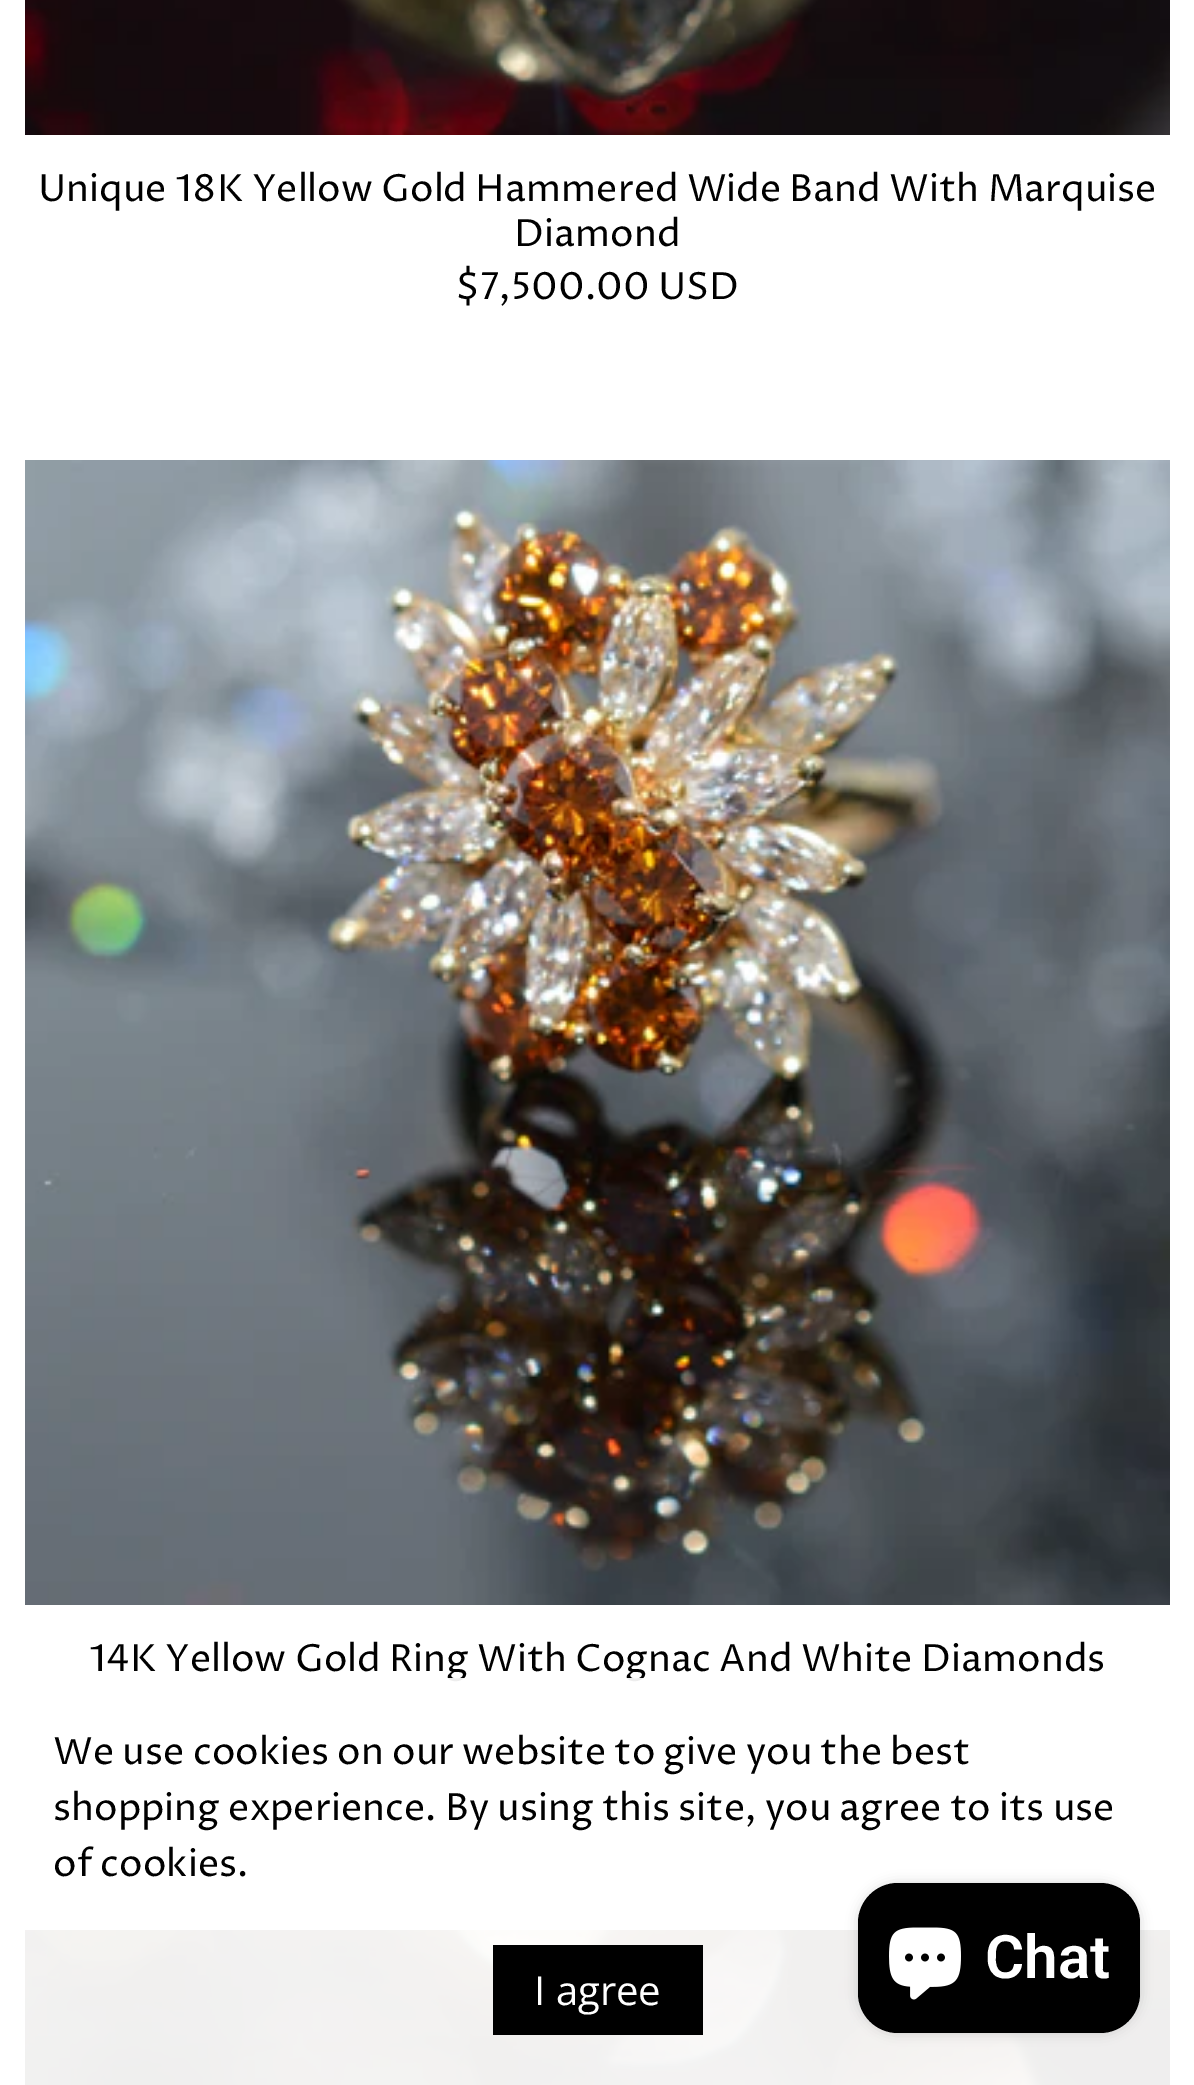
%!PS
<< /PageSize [1194 2085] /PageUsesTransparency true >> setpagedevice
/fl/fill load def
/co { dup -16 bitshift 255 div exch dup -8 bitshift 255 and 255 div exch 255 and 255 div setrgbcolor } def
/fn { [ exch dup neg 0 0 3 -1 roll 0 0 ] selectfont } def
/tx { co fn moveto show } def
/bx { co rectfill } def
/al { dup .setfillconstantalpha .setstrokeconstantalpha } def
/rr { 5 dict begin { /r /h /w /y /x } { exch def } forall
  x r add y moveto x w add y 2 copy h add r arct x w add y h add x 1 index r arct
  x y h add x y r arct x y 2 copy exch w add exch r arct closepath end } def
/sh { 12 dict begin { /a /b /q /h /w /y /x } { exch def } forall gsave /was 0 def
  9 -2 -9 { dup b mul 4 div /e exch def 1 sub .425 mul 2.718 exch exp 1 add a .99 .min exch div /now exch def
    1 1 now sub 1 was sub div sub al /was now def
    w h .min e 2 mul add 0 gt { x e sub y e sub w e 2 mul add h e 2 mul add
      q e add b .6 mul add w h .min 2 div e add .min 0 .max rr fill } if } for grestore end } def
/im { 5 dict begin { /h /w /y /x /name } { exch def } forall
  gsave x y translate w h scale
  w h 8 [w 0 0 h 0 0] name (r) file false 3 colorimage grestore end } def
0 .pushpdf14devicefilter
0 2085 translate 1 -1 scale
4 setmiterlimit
0 0 1194 2085 16#FFFFFF bx
(media/1.raw) 25 0 1145 135 im
(media/2.raw) 25 460 1145 1145 im
(media/3.raw) 25 1930 1145 155 im
(Unique 18K Yellow Gold Hammered Wide Band With Marquise) 38 201 /ProzaLibre-Regular 37.5 16#000000 tx
(Diamond) 514 246 /ProzaLibre-Regular 37.5 16#000000 tx
($7,500.00 USD) 455 299 /ProzaLibre-Regular 37.5 16#000000 tx
(14K Yellow Gold Ring With Cognac And White Diamonds) 89 1671 /ProzaLibre-Regular 37.5 16#000000 tx
0.93 al
25 1678 1145 407 16#FFFFFF bx
1 al
(We use cookies on our website to give you the best) 53 1764 /ProzaLibre-Regular 37.5 16#000000 tx
(shopping experience. By using this site, you agree to its use) 53 1820 /ProzaLibre-Regular 37.5 16#000000 tx
(of cookies.) 53 1876 /ProzaLibre-Regular 37.5 16#000000 tx
493 1945 210 90 16#000000 bx
(I agree) 534 2005 /OpenSans-Regular 40 16#FFFFFF tx
16#000000 co
858 1883 282 150 40 6 .15 sh
858 1883 282 150 40 rr fl
(media/4.raw) 889 1927 72 73 im
(Chat) 985 1978 /Roboto-SemiBold 60 16#FFFFFF tx
.poppdf14devicefilter showpage
